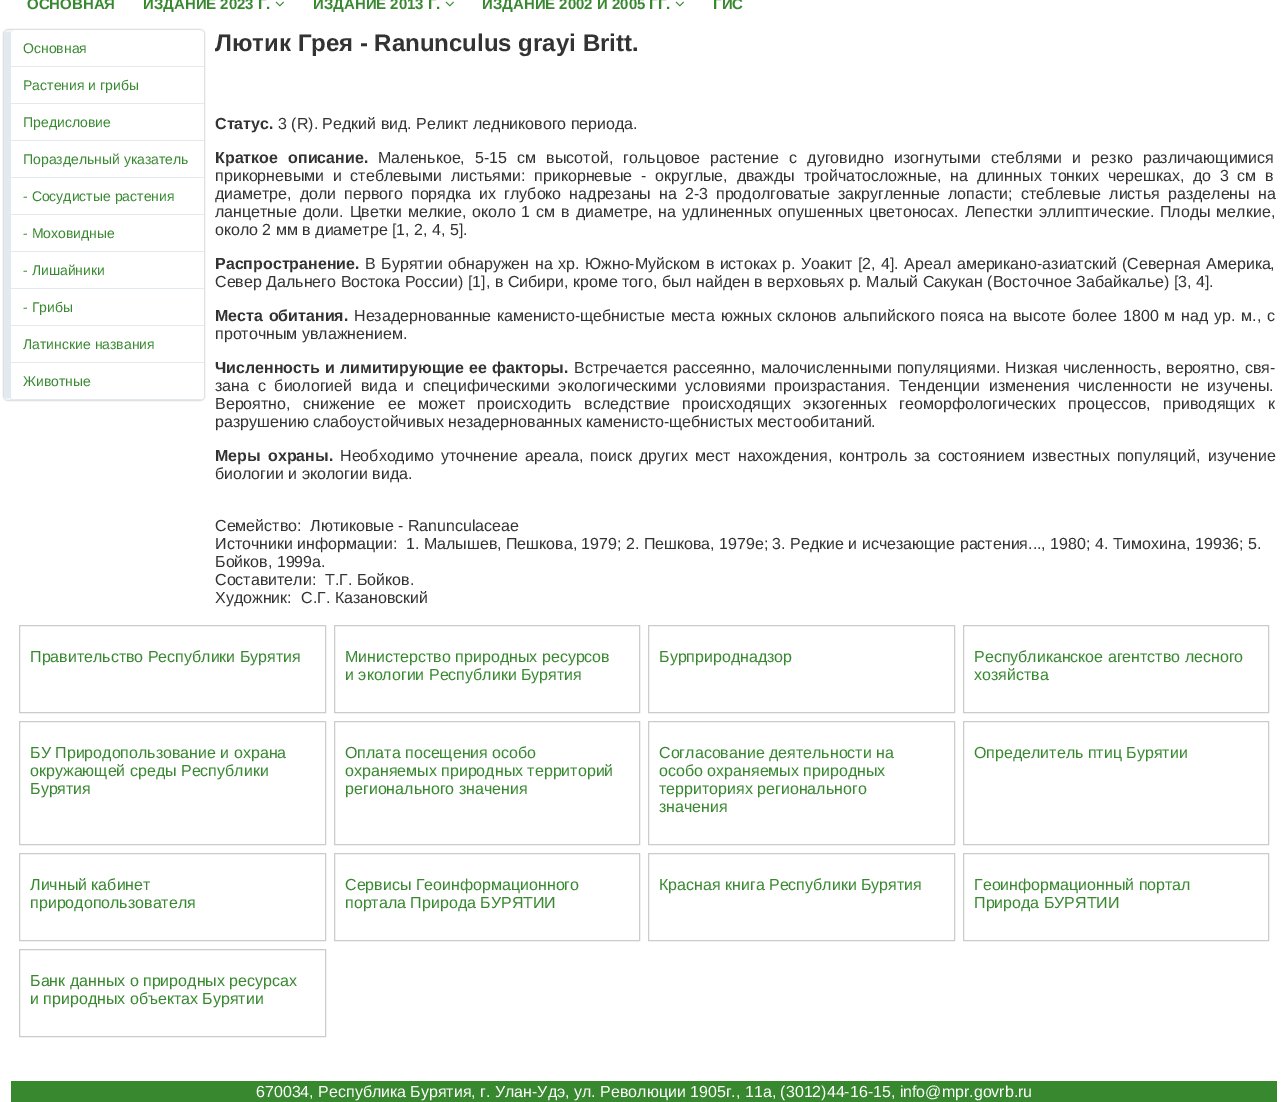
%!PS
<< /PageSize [1288 1102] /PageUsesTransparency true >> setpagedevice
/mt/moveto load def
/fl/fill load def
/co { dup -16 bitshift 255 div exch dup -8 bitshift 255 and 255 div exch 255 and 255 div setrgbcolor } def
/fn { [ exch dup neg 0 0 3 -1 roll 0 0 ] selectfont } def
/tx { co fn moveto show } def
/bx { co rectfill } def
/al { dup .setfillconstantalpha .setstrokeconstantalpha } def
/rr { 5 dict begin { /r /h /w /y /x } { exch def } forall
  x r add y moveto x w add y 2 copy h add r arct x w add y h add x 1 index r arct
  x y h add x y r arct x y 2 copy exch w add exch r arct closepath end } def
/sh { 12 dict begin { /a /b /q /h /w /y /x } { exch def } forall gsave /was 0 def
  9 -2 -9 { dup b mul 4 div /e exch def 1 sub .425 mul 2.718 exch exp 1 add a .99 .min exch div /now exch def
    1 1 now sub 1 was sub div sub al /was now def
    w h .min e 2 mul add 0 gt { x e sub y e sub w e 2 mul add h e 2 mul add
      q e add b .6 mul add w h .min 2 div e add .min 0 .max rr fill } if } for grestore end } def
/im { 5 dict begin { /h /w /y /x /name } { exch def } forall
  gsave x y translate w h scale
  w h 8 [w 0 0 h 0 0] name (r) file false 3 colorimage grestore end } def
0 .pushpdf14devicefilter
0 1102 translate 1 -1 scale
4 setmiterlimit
0 0 1288 1102 16#FFFFFF bx
(media/1.raw) 275 1 9 6 im
(media/1.raw) 445 1 9 6 im
(media/1.raw) 675 1 9 6 im
16#DCDCDC co
3 29 202 372 5 .5 1 sh
16#F1F4F7 co
4 30 200 370 4 rr fl
4 32 7 366 16#E3EAEF bx
16#FFFFFF co
11 30 193 370 5 rr fl
11 66 193 1 16#E3EAEF bx
11 103 193 1 16#E3EAEF bx
11 140 193 1 16#E3EAEF bx
11 177 193 1 16#E3EAEF bx
11 214 193 1 16#E3EAEF bx
11 251 193 1 16#E3EAEF bx
11 288 193 1 16#E3EAEF bx
11 325 193 1 16#E3EAEF bx
11 362 193 1 16#E3EAEF bx
11 399 191 1 16#E3EAEF bx
16#CCCCCC co
19.5 625.5 306 87 rectstroke
334.5 625.5 305 87 rectstroke
648.5 625.5 306 87 rectstroke
963.5 625.5 305 87 rectstroke
19.5 721.5 306 123 rectstroke
334.5 721.5 305 123 rectstroke
648.5 721.5 306 123 rectstroke
963.5 721.5 305 123 rectstroke
19.5 853.5 306 87 rectstroke
334.5 853.5 305 87 rectstroke
648.5 853.5 306 87 rectstroke
963.5 853.5 305 87 rectstroke
19.5 949.5 306 87 rectstroke
11 1081 1266 21 16#388830 bx
(ОСНОВНАЯ) 27 9 /LiberationSans-Bold 15 16#388830 tx
(ИЗДАНИЕ 2023 Г.) 143 9 /LiberationSans-Bold 15 16#388830 tx
(ИЗДАНИЕ 2013 Г.) 313 9 /LiberationSans-Bold 15 16#388830 tx
(ИЗДАНИЕ 2002 И 2005 ГГ.) 482 9 /LiberationSans-Bold 15 16#388830 tx
(ГИС) 713 9 /LiberationSans-Bold 15 16#388830 tx
(Основная) 23 53 /LiberationSans-Regular 14 16#388830 tx
(Растения и грибы) 23 90 /LiberationSans-Regular 14 16#388830 tx
(Предисловие) 23 127 /LiberationSans-Regular 14 16#388830 tx
(Пораздельный указатель) 23 164 /LiberationSans-Regular 14 16#388830 tx
(- Сосудистые растения) 23 201 /LiberationSans-Regular 14 16#388830 tx
(- Моховидные) 23 238 /LiberationSans-Regular 14 16#388830 tx
(- Лишайники) 23 275 /LiberationSans-Regular 14 16#388830 tx
(- Грибы) 23 312 /LiberationSans-Regular 14 16#388830 tx
(Латинские названия) 23 349 /LiberationSans-Regular 14 16#388830 tx
(Животные) 23 386 /LiberationSans-Regular 14 16#388830 tx
(Лютик Грея - Ranunculus grayi Britt.) 215 51 /LiberationSans-Bold 24 16#333333 tx
(Статус.) 215 129 /LiberationSans-Bold 16 16#333333 tx
(3 \(R\). Редкий вид. Реликт ледникового периода.) 278 129 /LiberationSans-Regular 16 16#333333 tx
/LiberationSans-Bold 16 fn
215 163 mt 5.75 0 32 (Краткое описание.) widthshow
/LiberationSans-Regular 16 fn
378 163 mt 5.75 0 32 (Маленькое, 5-15 см высотой, гольцовое растение с дуговидно изогнутыми стеблями и резко различающимися) widthshow
215 181 mt 4.25 0 32 (прикорневыми и стеблевыми листьями: прикорневые) widthshow
641 181 mt 4.25 0 32 (- округлые, дважды тройчатосложные, на длинных тонких черешках, до 3 см в) widthshow
215 199 mt 3.6 0 32 (диаметре, доли первого порядка их глубоко надрезаны на 2-3 продолговатые закругленные лопасти; стеблевые листья разделены на) widthshow
215 217 mt 1.5 0 32 (ланцетные доли. Цветки мелкие, около 1 см в диаметре, на удлиненных опушенных цветоносах. Лепестки эллиптические. Плоды мелкие,) widthshow
(около 2 мм в диаметре [1, 2, 4, 5].) 215 235 /LiberationSans-Regular 16 16#333333 tx
(Распространение.) 215 269 /LiberationSans-Bold 16 16#333333 tx
/LiberationSans-Regular 16 fn
365 269 mt 1.1 0 32 (В Бурятии обнаружен на хр. Южно-Муйском в истоках р. Уоакит [2, 4]. Ареал американо-азиатский \(Северная Америка,) widthshow
(Север Дальнего Востока России\) [1], в Сибири, кроме того, был найден в верховьях р. Малый Сакукан \(Восточное Забайкалье\) [3, 4].) 215 287 /LiberationSans-Regular 16 16#333333 tx
/LiberationSans-Bold 16 fn
215 321 mt 1.4 0 32 (Места обитания.) widthshow
/LiberationSans-Regular 16 fn
354 321 mt 1.4 0 32 (Незадернованные каменисто-щебнистые места южных склонов альпийского пояса на высоте более 1800 м над ур. м., с) widthshow
(проточным увлажнением.) 215 339 /LiberationSans-Regular 16 16#333333 tx
/LiberationSans-Bold 16 fn
215 373 mt .75 0 32 (Численность и лимитирующие ее факторы.) widthshow
/LiberationSans-Regular 16 fn
574 373 mt .75 0 32 (Встречается рассеянно, малочисленными популяциями. Низкая численность, вероятно, свя-) widthshow
215 391 mt 4.25 0 32 (зана с биологией вида и специфическими экологическими условиями произрастания. Тенденции изменения численности не изучены.) widthshow
215 409 mt 8.1 0 32 (Вероятно, снижение ее может происходить вследствие происходящих экзогенных геоморфологических процессов, приводящих к) widthshow
(разрушению слабоустойчивых незадернованных каменисто-щебнистых местообитаний.) 215 427 /LiberationSans-Regular 16 16#333333 tx
/LiberationSans-Bold 16 fn
215 461 mt 2.75 0 32 (Меры охраны.) widthshow
/LiberationSans-Regular 16 fn
340 461 mt 2.75 0 32 (Необходимо уточнение ареала, поиск других мест нахождения, контроль за состоянием известных популяций, изучение) widthshow
(биологии и экологии вида.) 215 479 /LiberationSans-Regular 16 16#333333 tx
(Семейство:) 215 531 /LiberationSans-Regular 16 16#333333 tx
(Лютиковые - Ranunculaceae) 310 531 /LiberationSans-Regular 16 16#333333 tx
(Источники информации:) 215 549 /LiberationSans-Regular 16 16#333333 tx
(1. Малышев, Пешкова, 1979; 2. Пешкова, 1979е; 3. Редкие и исчезающие растения..., 1980; 4. Тимохина, 19936; 5.) 406 549 /LiberationSans-Regular 16 16#333333 tx
(Бойков, 1999а.) 215 567 /LiberationSans-Regular 16 16#333333 tx
(Составители:) 215 585 /LiberationSans-Regular 16 16#333333 tx
(Т.Г. Бойков.) 325 585 /LiberationSans-Regular 16 16#333333 tx
(Художник:) 215 603 /LiberationSans-Regular 16 16#333333 tx
(С.Г. Казановский) 301 603 /LiberationSans-Regular 16 16#333333 tx
(Правительство Республики Бурятия) 30 662 /LiberationSans-Regular 16 16#388830 tx
(Министерство природных ресурсов) 345 662 /LiberationSans-Regular 16 16#388830 tx
(и экологии Республики Бурятия) 345 680 /LiberationSans-Regular 16 16#388830 tx
(Бурприроднадзор) 659 662 /LiberationSans-Regular 16 16#388830 tx
(Республиканское агентство лесного) 974 662 /LiberationSans-Regular 16 16#388830 tx
(хозяйства) 974 680 /LiberationSans-Regular 16 16#388830 tx
(БУ Природопользование и охрана) 30 758 /LiberationSans-Regular 16 16#388830 tx
(окружающей среды Республики) 30 776 /LiberationSans-Regular 16 16#388830 tx
(Бурятия) 30 794 /LiberationSans-Regular 16 16#388830 tx
(Оплата посещения особо) 345 758 /LiberationSans-Regular 16 16#388830 tx
(охраняемых природных территорий) 345 776 /LiberationSans-Regular 16 16#388830 tx
(регионального значения) 345 794 /LiberationSans-Regular 16 16#388830 tx
(Согласование деятельности на) 659 758 /LiberationSans-Regular 16 16#388830 tx
(особо охраняемых природных) 659 776 /LiberationSans-Regular 16 16#388830 tx
(территориях регионального) 659 794 /LiberationSans-Regular 16 16#388830 tx
(значения) 659 812 /LiberationSans-Regular 16 16#388830 tx
(Определитель птиц Бурятии) 974 758 /LiberationSans-Regular 16 16#388830 tx
(Личный кабинет) 30 890 /LiberationSans-Regular 16 16#388830 tx
(природопользователя) 30 908 /LiberationSans-Regular 16 16#388830 tx
(Сервисы Геоинформационного) 345 890 /LiberationSans-Regular 16 16#388830 tx
(портала Природа БУРЯТИИ) 345 908 /LiberationSans-Regular 16 16#388830 tx
(Красная книга Республики Бурятия) 659 890 /LiberationSans-Regular 16 16#388830 tx
(Геоинформационный портал) 974 890 /LiberationSans-Regular 16 16#388830 tx
(Природа БУРЯТИИ) 974 908 /LiberationSans-Regular 16 16#388830 tx
(Банк данных о природных ресурсах) 30 986 /LiberationSans-Regular 16 16#388830 tx
(и природных объектах Бурятии) 30 1004 /LiberationSans-Regular 16 16#388830 tx
(670034, Республика Бурятия, г. Улан-Удэ, ул. Революции 1905г., 11а, \(3012\)44-16-15, info@mpr.govrb.ru) 256 1097 /LiberationSans-Regular 16 16#FFFFFF tx
.poppdf14devicefilter showpage
